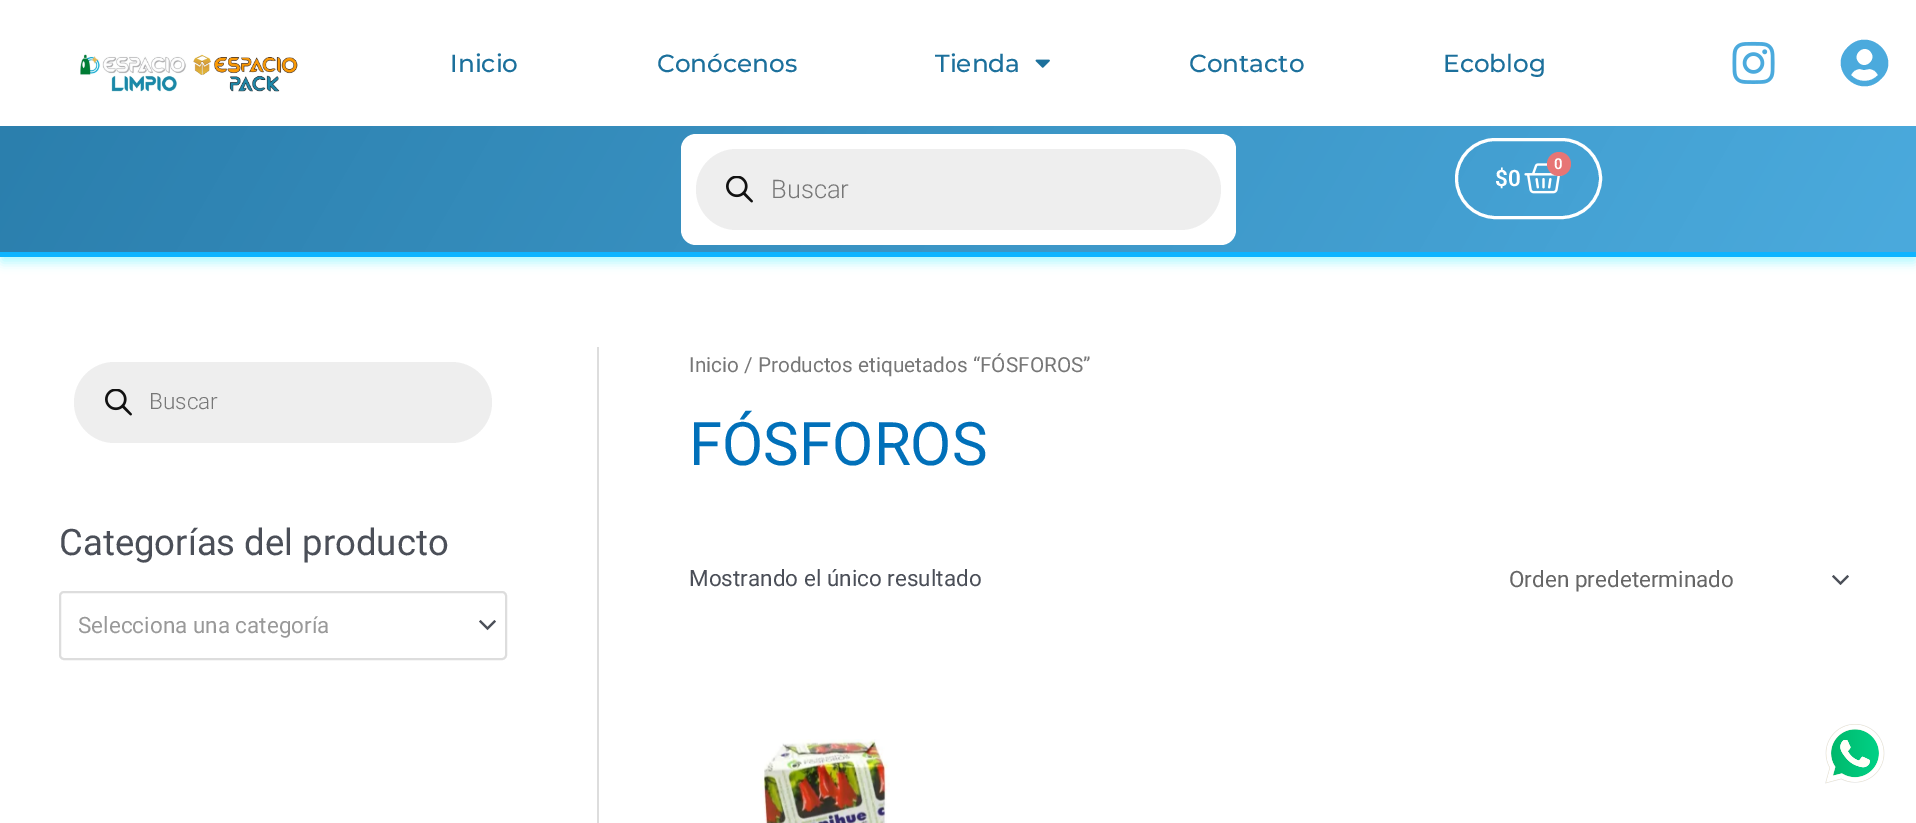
%!PS
<< /PageSize [1916 823] /PageUsesTransparency true >> setpagedevice
/mt/moveto load def
/li/lineto load def
/ct/curveto load def
/cp/closepath load def
/fl/fill load def
/st/stroke load def
/gs/gsave load def
/gr/grestore load def
/lw/setlinewidth load def
/co { dup -16 bitshift 255 div exch dup -8 bitshift 255 and 255 div exch 255 and 255 div setrgbcolor } def
/fn { [ exch dup neg 0 0 3 -1 roll 0 0 ] selectfont } def
/tx { co fn moveto show } def
/bx { co rectfill } def
/al { dup .setfillconstantalpha .setstrokeconstantalpha } def
/ci { newpath 0 360 arc closepath } def
/rr { 5 dict begin { /r /h /w /y /x } { exch def } forall
  x r add y moveto x w add y 2 copy h add r arct x w add y h add x 1 index r arct
  x y h add x y r arct x y 2 copy exch w add exch r arct closepath end } def
/sh { 12 dict begin { /a /b /q /h /w /y /x } { exch def } forall gsave /was 0 def
  9 -2 -9 { dup b mul 4 div /e exch def 1 sub .425 mul 2.718 exch exp 1 add a .99 .min exch div /now exch def
    1 1 now sub 1 was sub div sub al /was now def
    w h .min e 2 mul add 0 gt { x e sub y e sub w e 2 mul add h e 2 mul add
      q e add b .6 mul add w h .min 2 div e add .min 0 .max rr fill } if } for grestore end } def
/im { 5 dict begin { /h /w /y /x /name } { exch def } forall
  gsave x y translate w h scale
  w h 8 [w 0 0 h 0 0] name (r) file false 3 colorimage grestore end } def
0 .pushpdf14devicefilter
0 823 translate 1 -1 scale
4 setmiterlimit
0 0 1916 823 16#FFFFFF bx
16#00E8FF co
0 132 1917 131 3 5 .29 sh
0 123 1916 3 16#FFFFFF bx
(media/1.raw) 80 54 218 38 im
(media/2.raw) 1035 59 15 9 im
(media/3.raw) 1732 41 43 43 im
16#4BAADD co
1848 47 mt 1870 25 1903 58 1881 79 ct 1859 101 1826 68 1848 47 ct cp 1870 51 mt 1863 44 1851 55 1859 63 ct 1866 70 1878 59 1870 51 ct cp 1851 75 mt 1858 83 1871 83 1878 75 ct 1876 71 1873 69 1869 69 ct 1864 70 li 1860 69 li 1856 69 1853 71 1851 75 ct cp fl
(media/4.raw) 1825 724 60 60 im
gs 0 126 mt 1916 126 li 1916 252 li 0 252 li cp clip newpath
<< /ShadingType 2 /ColorSpace /DeviceRGB /Coords [1705 620 212 -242] /Extend [true true] /Function << /FunctionType 2 /Domain [0 1] /C0 [.294 .667 .867] /C1 [.169 .498 .678] /N 1 >> >> shfill gr
0 252 1916 5 16#0EB4FF bx
16#FFFFFF co
681 134 555 111 15 rr fl
16#EEEEEE co
696 149 525 81 40.5 rr fl
(media/5.raw) 726 176 27 27 im
16#FFFFFF co
3 lw
1456.5 139.5 144 78 39 rr st
(media/6.raw) 1524 163 39 31 im
16#E77575 co
1559 164 12 ci fl
16#EEEEEE co
74 362 418 81 40.5 rr fl
(media/5.raw) 105 389 27 27 im
(media/7.raw) 479 620 17 11 im
16#DDDDDD co
2 lw
60 592 446 67 4 rr st
597 347 2 476 16#DDDDDD bx
(media/8.raw) 1832 575 17 10 im
(media/9.raw) 760 739 130 84 im
(Inicio) 450 72 /Montserrat-Medium 24.75 16#1C709C tx
(Conócenos) 657 72 /Montserrat-Medium 24.75 16#1C709C tx
(Tienda) 935 72 /Montserrat-Medium 24.75 16#1C709C tx
(Contacto) 1189 72 /Montserrat-Medium 24.75 16#1C709C tx
(Ecoblog) 1443 72 /Montserrat-Medium 24.75 16#1C709C tx
(Buscar) 771 198 /Roboto-Light 25.5 16#777777 tx
(0) 1554 169 /Roboto-SemiBold 15 16#FFFFFF tx
($0) 1495 186 /Roboto-SemiBold 22.5 16#FFFFFF tx
(Buscar) 149 409 /Roboto-Light 22.5 16#777777 tx
(Categorías del producto) 59 555 /Roboto-Regular 36.5 16#4B4F58 tx
(Selecciona una categoría) 78 633 /Roboto-Regular 22.5 16#999999 tx
(Inicio / Productos etiquetados “FÓSFOROS”) 689 372 /Roboto-Regular 20.75 16#777777 tx
(FÓSFOROS) 689 465 /Roboto-Regular 60 16#0170B9 tx
(Mostrando el único resultado) 689 586 /Roboto-Regular 22.5 16#4B4F58 tx
(Orden predeterminado) 1509 587 /Roboto-Regular 22.5 16#666666 tx
.poppdf14devicefilter showpage
